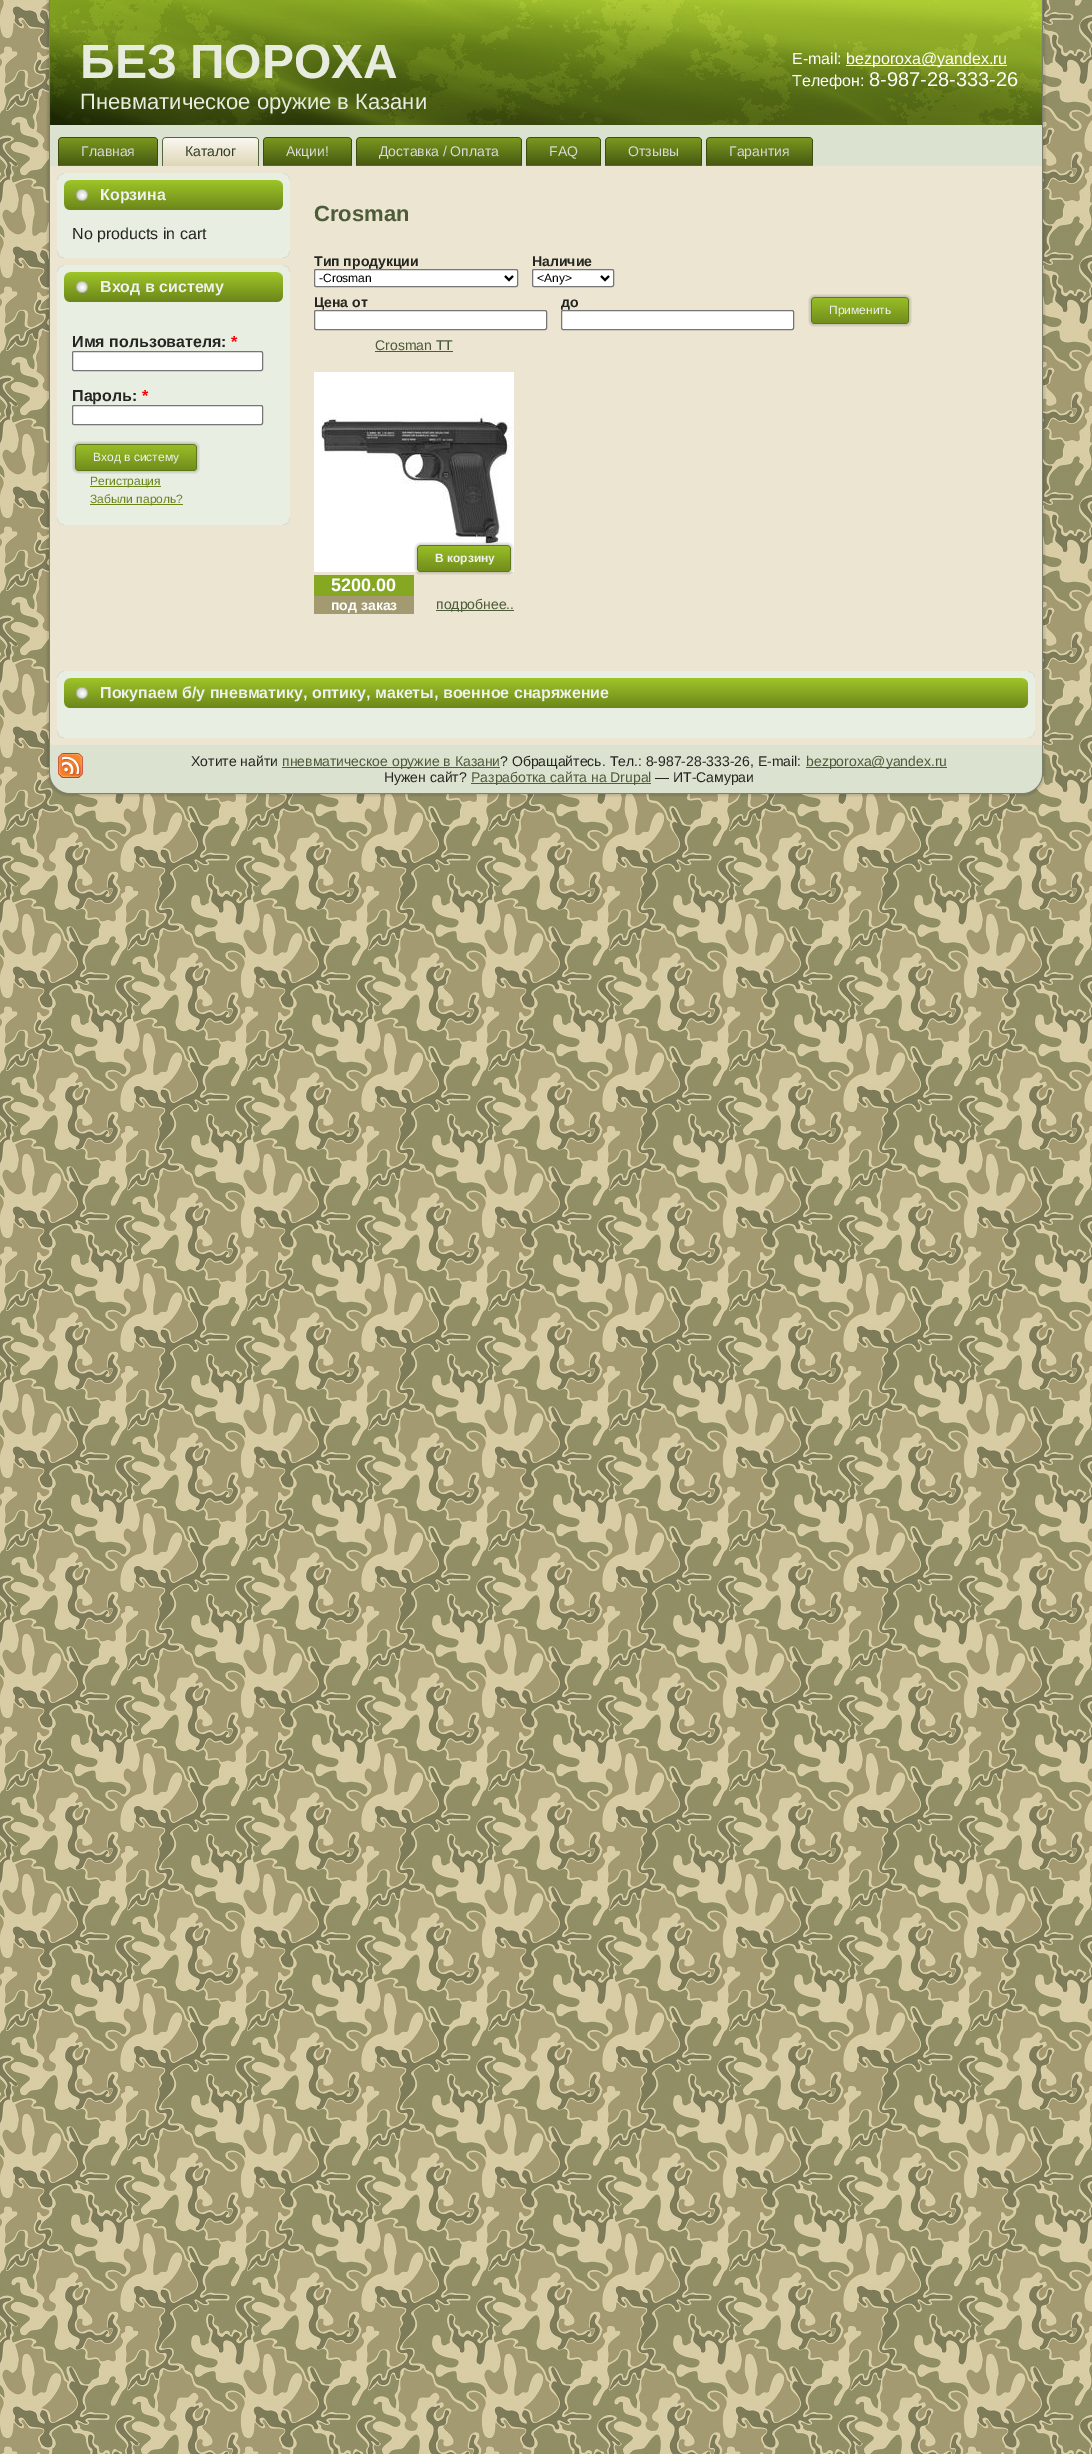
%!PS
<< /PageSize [1092 2454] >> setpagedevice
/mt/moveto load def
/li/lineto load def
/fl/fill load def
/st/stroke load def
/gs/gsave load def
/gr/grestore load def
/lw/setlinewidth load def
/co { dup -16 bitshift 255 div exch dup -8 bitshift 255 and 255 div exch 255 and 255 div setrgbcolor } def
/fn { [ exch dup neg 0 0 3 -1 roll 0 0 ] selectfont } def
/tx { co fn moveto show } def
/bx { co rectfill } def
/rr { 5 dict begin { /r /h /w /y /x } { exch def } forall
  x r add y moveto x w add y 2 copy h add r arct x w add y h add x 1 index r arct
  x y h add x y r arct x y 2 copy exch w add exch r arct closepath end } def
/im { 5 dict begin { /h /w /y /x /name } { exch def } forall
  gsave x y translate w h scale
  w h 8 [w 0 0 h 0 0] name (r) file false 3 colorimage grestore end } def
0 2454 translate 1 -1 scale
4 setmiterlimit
0 0 1092 2454 16#FFFFFF bx
(media/1.raw) 0 0 1092 2454 im
(media/2.raw) 46 0 4 29 im
(media/3.raw) 1042 0 4 29 im
(media/4.raw) 46 29 33 735 im
(media/32.raw) 1013 29 33 735 im
(media/5.raw) 50 0 992 125 im
846 65 161 1 16#FFFFFF bx
50 125 992 41 16#DBE2D0 bx
(media/6.raw) 58 137 96 29 im
(media/7.raw) 154 137 4 29 im
(media/8.raw) 162 137 93 29 im
(media/9.raw) 255 137 4 29 im
(media/10.raw) 263 137 85 29 im
(media/7.raw) 348 137 4 29 im
(media/11.raw) 356 137 162 29 im
(media/7.raw) 518 137 4 29 im
(media/12.raw) 526 137 71 29 im
(media/7.raw) 597 137 4 29 im
(media/13.raw) 605 137 93 29 im
(media/7.raw) 698 137 4 29 im
(media/14.raw) 706 137 103 29 im
(media/7.raw) 809 137 4 29 im
(media/15.raw) 57 173 7 7 im
79 166 934 579 16#EBE5D1 bx
64 173 219 7 16#E9EEE3 bx
(media/16.raw) 283 173 7 7 im
57 180 7 71 16#E9EEE3 bx
64 180 226 71 16#E9EEE3 bx
(media/17.raw) 64 180 213 30 im
(media/18.raw) 277 180 6 30 im
(media/19.raw) 76 189 12 12 im
(media/20.raw) 57 251 7 7 im
64 251 219 7 16#E9EEE3 bx
(media/21.raw) 283 251 7 7 im
(media/15.raw) 57 265 7 7 im
64 265 219 7 16#E9EEE3 bx
(media/16.raw) 283 265 7 7 im
57 272 7 246 16#E9EEE3 bx
64 272 226 246 16#E9EEE3 bx
(media/17.raw) 64 272 213 30 im
(media/18.raw) 277 272 6 30 im
(media/19.raw) 76 281 12 12 im
16#FFFFFF co
72.5 351.5 190 19 1.5 rr gs fl gr
16#767676 co
st
16#FFFFFF co
72.5 405.5 190 19 1.5 rr gs fl gr
16#767676 co
st
(media/22.raw) 72 441 118 33 im
(media/23.raw) 190 441 10 33 im
90 486 71 1 16#6A841A bx
90 504 93 1 16#6A841A bx
(media/20.raw) 57 518 7 7 im
64 518 219 7 16#E9EEE3 bx
(media/21.raw) 283 518 7 7 im
16#FFFFFF co
314.5 269.5 203 17 1.5 rr gs fl gr
16#767676 co
st
16#000000 co
2 lw
505 276 mt 509 280 li 513 276 li st
16#FFFFFF co
532.5 269.5 81 17 1.5 rr gs fl gr
16#767676 co
1 lw
st
16#000000 co
2 lw
601 276 mt 605 280 li 609 276 li st
16#FFFFFF co
314.5 310.5 232 19 1.5 rr gs fl gr
16#767676 co
1 lw
st
16#FFFFFF co
561.5 310.5 232 19 1.5 rr gs fl gr
16#767676 co
st
(media/24.raw) 808 294 94 33 im
(media/25.raw) 902 294 10 33 im
375 351 78 1 16#4D5C38 bx
(media/26.raw) 314 372 200 200 im
(media/27.raw) 414 542 90 33 im
(media/28.raw) 504 542 10 33 im
314 575 100 21 16#86A721 bx
314 596 100 18 16#A39A71 bx
436 610 78 1 16#4D5C38 bx
(media/15.raw) 57 671 7 7 im
64 671 964 7 16#E9EEE3 bx
(media/16.raw) 1028 671 7 7 im
57 678 7 53 16#E9EEE3 bx
64 678 971 53 16#E9EEE3 bx
(media/29.raw) 64 678 958 30 im
(media/18.raw) 1022 678 6 30 im
(media/19.raw) 76 687 12 12 im
(media/20.raw) 57 731 7 7 im
64 731 964 7 16#E9EEE3 bx
(media/21.raw) 1028 731 7 7 im
(media/33.raw) 46 764 33 33 im
(media/35.raw) 1013 764 33 33 im
(media/30.raw) 50 745 992 48 im
(media/31.raw) 58 753 25 25 im
282 767 218 1 16#505F3A bx
806 767 141 1 16#505F3A bx
471 783 180 1 16#505F3A bx
(media/34.raw) 79 793 934 4 im
(БЕЗ ПОРОХА) 80 78 /LiberationSans-Bold 48 16#E7ECDF tx
(Пневматическое оружие в Казани) 80 109 /LiberationSans-Regular 22 16#E7ECDF tx
(E-mail:) 792 64 /LiberationSans-Regular 16 16#FFFFFF tx
(bezporoxa@yandex.ru) 846 64 /LiberationSans-Regular 16 16#FFFFFF tx
(Телефон:) 792 86 /LiberationSans-Regular 16 16#FFFFFF tx
(8-987-28-333-26) 869 86 /LiberationSans-Regular 20 16#FFFFFF tx
(Главная) 81 156 /LiberationSans-Regular 14 16#DADBD6 tx
(Каталог) 185 156 /LiberationSans-Regular 14 16#333C25 tx
(Акции!) 286 156 /LiberationSans-Regular 14 16#DADBD6 tx
(Доставка / Оплата) 379 156 /LiberationSans-Regular 14 16#DADBD6 tx
(FAQ) 549 156 /LiberationSans-Regular 14 16#DADBD6 tx
(Отзывы) 628 156 /LiberationSans-Regular 14 16#DADBD6 tx
(Гарантия) 729 156 /LiberationSans-Regular 14 16#DADBD6 tx
(Корзина) 100 200 /LiberationSans-Bold 16 16#F0F1EF tx
(No products in cart) 72 239 /LiberationSans-Regular 16 16#252621 tx
(Вход в систему) 100 292 /LiberationSans-Bold 16 16#F0F1EF tx
(Имя пользователя:) 72 347 /LiberationSans-Bold 16 16#252621 tx
(*) 231 347 /LiberationSans-Bold 16 16#FF0000 tx
(Пароль:) 72 401 /LiberationSans-Bold 16 16#252621 tx
(*) 142 401 /LiberationSans-Bold 16 16#FF0000 tx
(Вход в систему) 93 461 /LiberationSans-Regular 12 16#F0F1EF tx
(Регистрация) 90 485 /LiberationSans-Regular 12 16#6A841A tx
(Забыли пароль?) 90 503 /LiberationSans-Regular 12 16#6A841A tx
(Crosman) 314 221 /LiberationSans-Bold 22 16#4D5C38 tx
(Тип продукции) 314 266 /LiberationSans-Bold 14 16#252621 tx
(-Crosman) 319 282 /LiberationSans-Regular 12 16#000000 tx
(Наличие) 532 266 /LiberationSans-Bold 14 16#252621 tx
(<Any>) 537 282 /LiberationSans-Regular 12 16#000000 tx
(Цена от) 314 307 /LiberationSans-Bold 14 16#252621 tx
(до) 561 307 /LiberationSans-Bold 14 16#252621 tx
(Применить) 829 314 /LiberationSans-Regular 12 16#F0F1EF tx
(Crosman TT) 375 350 /LiberationSans-Regular 14 16#4D5C38 tx
(В корзину) 435 562 /LiberationSans-Bold 12 16#F0F1EF tx
(5200.00) 331 591 /LiberationSans-Bold 18 16#FFFFFF tx
(под заказ) 331 610 /LiberationSans-Bold 14 16#FFFFFF tx
(подробнее..) 436 609 /LiberationSans-Regular 14 16#4D5C38 tx
(Покупаем б/у пневматику, оптику, макеты, военное снаряжение) 100 698 /LiberationSans-Bold 16 16#F0F1EF tx
(Хотите найти) 191 766 /LiberationSans-Regular 14 16#252621 tx
(пневматическое оружие в Казани) 282 766 /LiberationSans-Regular 14 16#4D5C38 tx
(? Обращайтесь. Тел.: 8-987-28-333-26, E-mail:) 500 766 /LiberationSans-Regular 14 16#252621 tx
(bezporoxa@yandex.ru) 806 766 /LiberationSans-Regular 14 16#4D5C38 tx
(Нужен сайт?) 384 782 /LiberationSans-Regular 14 16#252621 tx
(Разработка сайта на Drupal) 471 782 /LiberationSans-Regular 14 16#4D5C38 tx
(— ИТ-Самураи) 655 782 /LiberationSans-Regular 14 16#252621 tx
showpage
